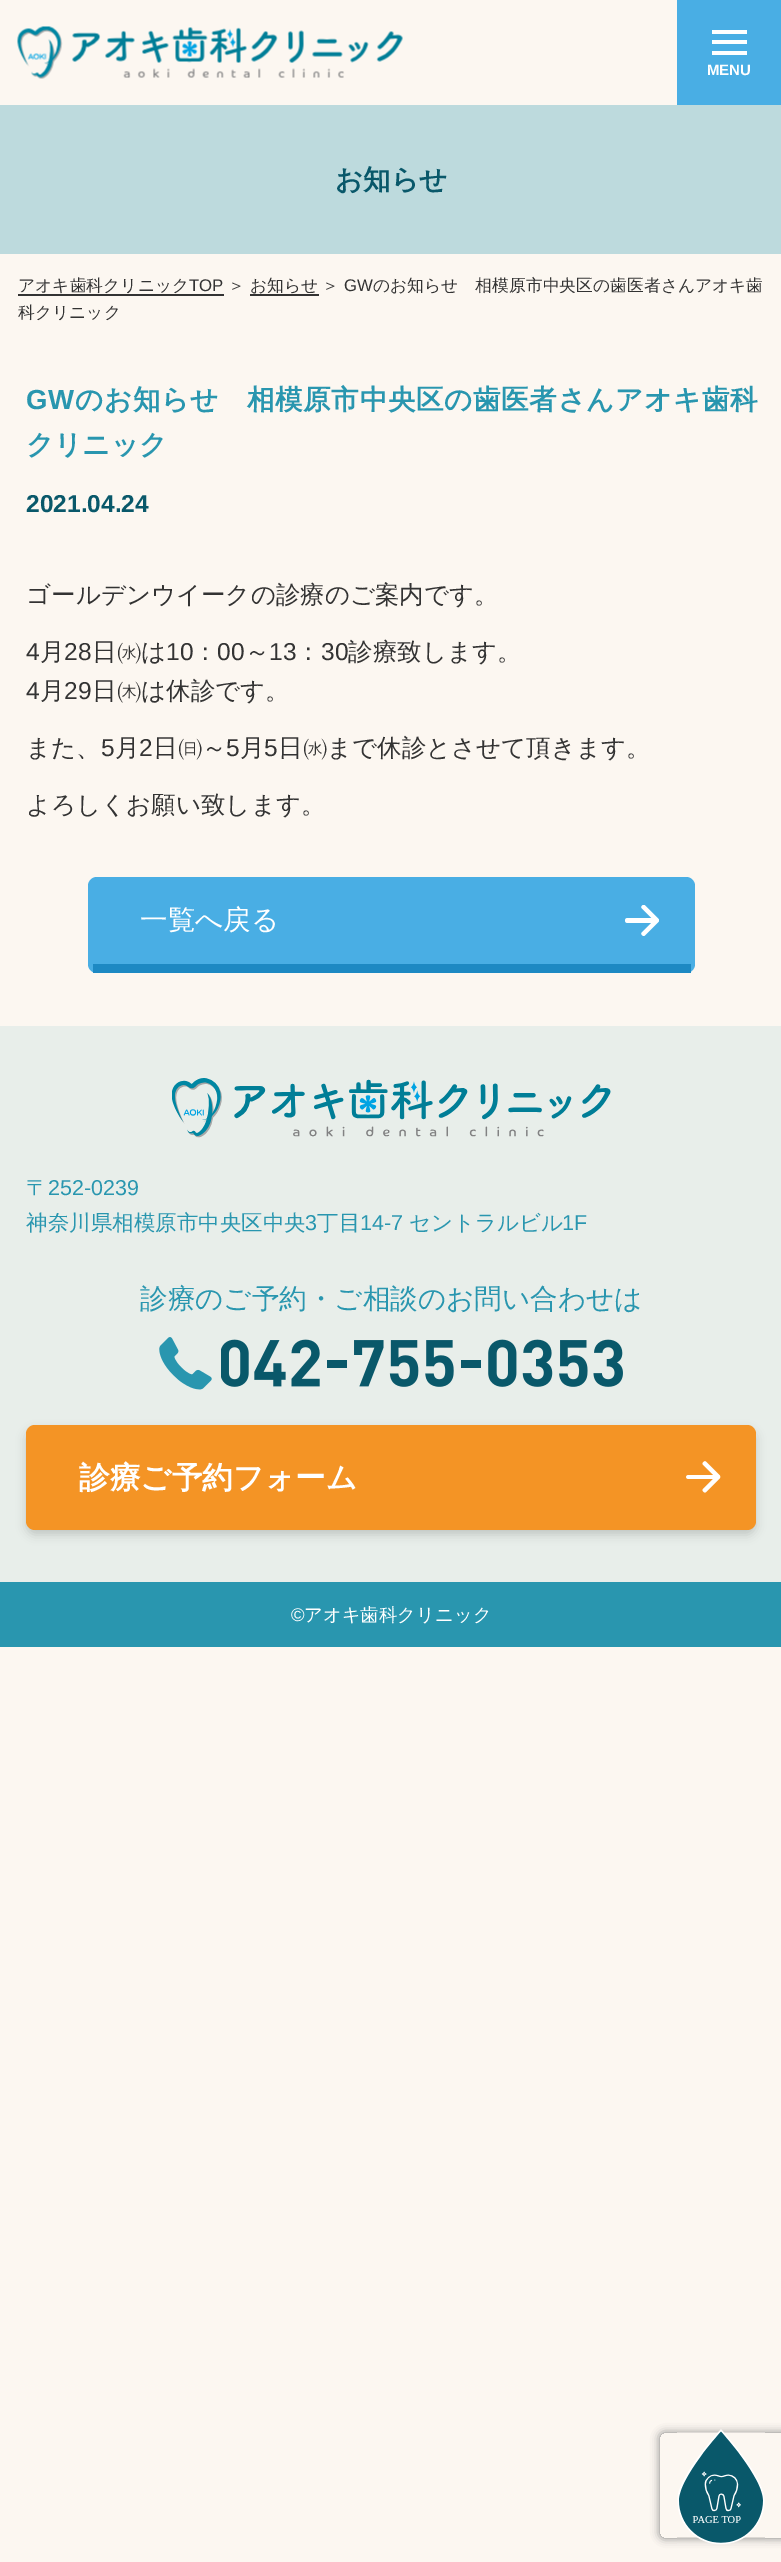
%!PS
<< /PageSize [781 2562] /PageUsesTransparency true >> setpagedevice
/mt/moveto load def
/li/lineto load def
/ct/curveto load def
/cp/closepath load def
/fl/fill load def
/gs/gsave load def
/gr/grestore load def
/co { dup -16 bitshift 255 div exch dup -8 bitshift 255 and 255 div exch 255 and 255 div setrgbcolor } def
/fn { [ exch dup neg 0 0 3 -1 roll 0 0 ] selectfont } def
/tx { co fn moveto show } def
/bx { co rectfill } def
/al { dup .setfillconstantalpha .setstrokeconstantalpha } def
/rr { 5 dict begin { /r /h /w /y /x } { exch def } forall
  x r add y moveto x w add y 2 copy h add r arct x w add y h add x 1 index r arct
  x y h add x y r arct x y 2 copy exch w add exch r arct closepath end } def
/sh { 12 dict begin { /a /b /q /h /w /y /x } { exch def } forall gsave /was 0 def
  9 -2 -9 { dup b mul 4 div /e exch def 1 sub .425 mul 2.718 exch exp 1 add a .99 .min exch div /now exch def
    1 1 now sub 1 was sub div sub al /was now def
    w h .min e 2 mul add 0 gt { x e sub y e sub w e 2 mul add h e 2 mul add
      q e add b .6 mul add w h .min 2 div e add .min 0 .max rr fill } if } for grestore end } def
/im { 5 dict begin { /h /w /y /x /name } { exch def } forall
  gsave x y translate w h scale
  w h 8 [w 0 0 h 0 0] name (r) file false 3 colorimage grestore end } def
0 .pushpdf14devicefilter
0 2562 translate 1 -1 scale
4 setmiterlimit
0 0 781 2562 16#FCF7F1 bx
(media/1.raw) 17 26 386 53 im
677 0 104 105 16#49AEE4 bx
712 40 35 4 16#FFFFFF bx
712 30 35 4 16#FFFFFF bx
712 51 35 4 16#FFFFFF bx
0 105 781 149 16#BDDADD bx
18 294 206 2 16#333333 bx
250 294 69 2 16#333333 bx
16#49AEE4 co
88 877 607 96 9 rr fl
93 964 598 9 16#1D89C3 bx
(media/2.raw) 625 905 34 31 im
0 1026 781 556 16#E8EEEA bx
(media/3.raw) 172 1078 439 60 im
(media/4.raw) 159 1337 53 53 im
(media/5.raw) 221 1339 402 48 im
16#000000 co
26 1430 730 105 9 5 .16 sh
16#F49425 co
26 1425 730 105 9 rr fl
(media/6.raw) 686 1461 35 32 im
0 1582 781 65 16#2996AF bx
gs
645 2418 mt 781 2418 li 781 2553 li 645 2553 li cp 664 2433 mt 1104 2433 li 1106 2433 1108 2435 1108 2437 ct 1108 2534 li 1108 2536 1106 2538 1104 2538 ct 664 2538 li 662 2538 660 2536 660 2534 ct 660 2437 li 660 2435 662 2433 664 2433 ct cp eoclip newpath
16#808080 co
660 2433 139 105 4 4.5 1 sh
gr
(media/7.raw) 677 2429 88 116 im
(MENU) 707 75 /LiberationSans-Bold 15 16#FFFFFF tx
(お知らせ) 335 189 /WenQuanYiZenHei-Bold 27.6 16#09586A tx
(アオキ歯科クリニック) 18 291 /WenQuanYiZenHei-Medium 16.8 16#333333 tx
(TOP) 189 291 /LiberationSans-Regular 16.8 16#333333 tx
(＞) 228 291 /WenQuanYiZenHei-Medium 16.8 16#333333 tx
(お知らせ) 250 291 /WenQuanYiZenHei-Medium 16.8 16#333333 tx
(＞) 322 291 /WenQuanYiZenHei-Medium 16.8 16#333333 tx
(GW) 344 291 /LiberationSans-Regular 16.8 16#333333 tx
(のお知らせ　相模原市中央区の歯医者さんアオキ歯) 373 291 /WenQuanYiZenHei-Medium 16.8 16#333333 tx
(科クリニック) 18 318 /WenQuanYiZenHei-Medium 16.8 16#333333 tx
/LiberationSans-Bold 27.6 fn
16#2996AF co
26 409 mt .6 0 (GW) ashow
/WenQuanYiZenHei-Bold 27.6 fn
75 409 mt .6 0 (のお知らせ　相模原市中央区の歯医者さんアオキ歯科) ashow
(クリニック) 26 454 /WenQuanYiZenHei-Bold 27.6 16#2996AF tx
(2021.04.24) 26 512 /LiberationSans-Bold 24.5 16#09586A tx
(ゴールデンウイークの診療のご案内です。) 26 603 /WenQuanYiZenHei-Medium 24.5 16#333333 tx
(4) 26 660 /LiberationSans-Regular 24.5 16#333333 tx
(月) 40 660 /WenQuanYiZenHei-Medium 24.5 16#333333 tx
(28) 64 660 /LiberationSans-Regular 24.5 16#333333 tx
(日㈬は) 92 660 /WenQuanYiZenHei-Medium 24.5 16#333333 tx
(10) 166 660 /LiberationSans-Regular 24.5 16#333333 tx
(：) 193 660 /WenQuanYiZenHei-Medium 24.5 16#333333 tx
(00) 217 660 /LiberationSans-Regular 24.5 16#333333 tx
(～) 245 660 /WenQuanYiZenHei-Medium 24.5 16#333333 tx
(13) 269 660 /LiberationSans-Regular 24.5 16#333333 tx
(：) 296 660 /WenQuanYiZenHei-Medium 24.5 16#333333 tx
(30) 321 660 /LiberationSans-Regular 24.5 16#333333 tx
(診療致します。) 348 660 /WenQuanYiZenHei-Medium 24.5 16#333333 tx
(4) 26 699 /LiberationSans-Regular 24.5 16#333333 tx
(月) 40 699 /WenQuanYiZenHei-Medium 24.5 16#333333 tx
(29) 64 699 /LiberationSans-Regular 24.5 16#333333 tx
(日㈭は休診です。) 92 699 /WenQuanYiZenHei-Medium 24.5 16#333333 tx
(また、) 26 756 /WenQuanYiZenHei-Medium 24.5 16#333333 tx
(5) 101 756 /LiberationSans-Regular 24.5 16#333333 tx
(月) 115 756 /WenQuanYiZenHei-Medium 24.5 16#333333 tx
(2) 139 756 /LiberationSans-Regular 24.5 16#333333 tx
(日㈰～) 153 756 /WenQuanYiZenHei-Medium 24.5 16#333333 tx
(5) 226 756 /LiberationSans-Regular 24.5 16#333333 tx
(月) 240 756 /WenQuanYiZenHei-Medium 24.5 16#333333 tx
(5) 264 756 /LiberationSans-Regular 24.5 16#333333 tx
(日㈬まで休診とさせて頂きます。) 278 756 /WenQuanYiZenHei-Medium 24.5 16#333333 tx
(よろしくお願い致します。) 26 813 /WenQuanYiZenHei-Medium 24.5 16#333333 tx
(一覧へ戻る) 140 929 /WenQuanYiZenHei-Medium 27.6 16#FFFFFF tx
(〒) 26 1195 /WenQuanYiZenHei-Medium 21.5 16#2996AF tx
(252-0239) 48 1195 /LiberationSans-Regular 21.5 16#2996AF tx
(神奈川県相模原市中央区中央) 26 1230 /WenQuanYiZenHei-Medium 21.5 16#2996AF tx
(3) 305 1230 /LiberationSans-Regular 21.5 16#2996AF tx
(丁目) 317 1230 /WenQuanYiZenHei-Medium 21.5 16#2996AF tx
(14-7) 360 1230 /LiberationSans-Regular 21.5 16#2996AF tx
(セントラルビル) 409 1230 /WenQuanYiZenHei-Medium 21.5 16#2996AF tx
(1F) 562 1230 /LiberationSans-Regular 21.5 16#2996AF tx
(診療のご予約・ご相談のお問い合わせは) 140 1308 /WenQuanYiZenHei-Medium 27.6 16#2996AF tx
(診療ご予約フォーム) 79 1488 /WenQuanYiZenHei-Bold 30.6 16#FFFFFF tx
(©) 291 1621 /LiberationSans-Regular 18.4 16#FFFFFF tx
(アオキ歯科クリニック) 304 1621 /WenQuanYiZenHei-Medium 18.4 16#FFFFFF tx
.poppdf14devicefilter showpage
